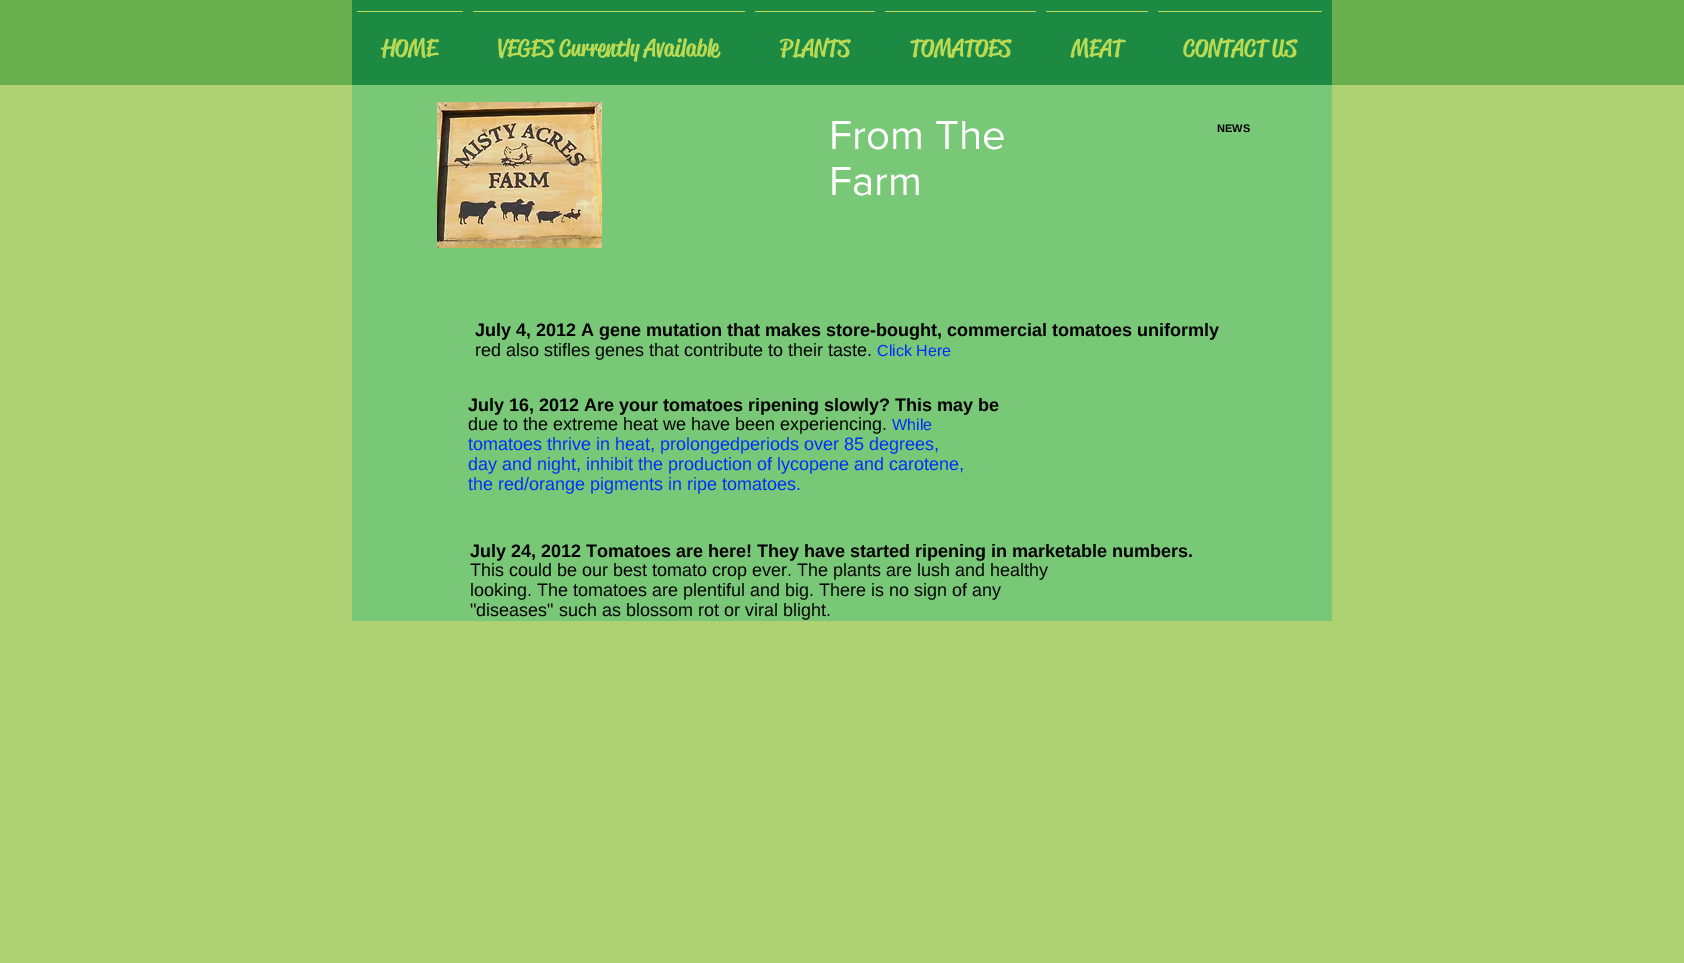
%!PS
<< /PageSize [1684 963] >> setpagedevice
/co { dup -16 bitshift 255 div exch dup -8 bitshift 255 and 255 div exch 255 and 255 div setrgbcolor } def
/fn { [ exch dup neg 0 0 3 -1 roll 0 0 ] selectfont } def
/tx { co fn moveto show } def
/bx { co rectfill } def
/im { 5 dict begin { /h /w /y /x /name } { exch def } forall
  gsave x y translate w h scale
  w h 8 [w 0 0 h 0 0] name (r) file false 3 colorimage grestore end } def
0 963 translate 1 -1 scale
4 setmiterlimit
0 0 1684 963 16#AED173 bx
0 0 1684 85 16#68B04D bx
352 0 980 85 16#1C8A43 bx
357 11 106 1 16#BADA55 bx
473 11 272 1 16#BADA55 bx
755 11 120 1 16#BADA55 bx
885 11 151 1 16#BADA55 bx
1046 11 102 1 16#BADA55 bx
1158 11 164 1 16#BADA55 bx
352 85 980 536 16#79C877 bx
(media/1.raw) 437 102 165 146 im
(HOME) 382 56 /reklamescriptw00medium-Medium 24 16#BADA55 tx
(VEGES Currently Available) 498 56 /reklamescriptw00medium-Medium 24 16#BADA55 tx
(PLANTS) 780 56 /reklamescriptw00medium-Medium 24 16#BADA55 tx
(TOMATOES) 910 56 /reklamescriptw00medium-Medium 24 16#BADA55 tx
(MEAT) 1071 56 /reklamescriptw00medium-Medium 24 16#BADA55 tx
(CONTACT US) 1183 56 /reklamescriptw00medium-Medium 24 16#BADA55 tx
(From The) 829 149 /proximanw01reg-Regular 42 16#FFFFFF tx
(Farm) 829 195 /proximanw01reg-Regular 42 16#FFFFFF tx
(NEWS) 1217 132 /LiberationSans-Bold 11 16#010101 tx
(July 4, 2012 A gene mutation that makes store-bought, commercial tomatoes uniformly) 475 336 /LiberationSans-Bold 18 16#010101 tx
(red also stifles genes that contribute to their taste.) 475 356 /LiberationSans-Regular 18 16#010101 tx
(Click Here) 877 356 /LiberationSans-Regular 16 16#002EFE tx
(July 16, 2012 Are your tomatoes ripening slowly? This may be) 468 411 /LiberationSans-Bold 18 16#010101 tx
(due to the extreme heat we have been experiencing.) 468 430 /LiberationSans-Regular 18 16#010101 tx
(While) 892 430 /LiberationSans-Regular 16 16#002EFE tx
(tomatoes thrive in heat, prolongedperiods over 85 degrees,) 468 450 /LiberationSans-Regular 18 16#002EFE tx
(day and night, inhibit the production of lycopene and carotene,) 468 470 /LiberationSans-Regular 18 16#002EFE tx
(the red/orange pigments in ripe tomatoes.) 468 490 /LiberationSans-Regular 18 16#002EFE tx
(July 24, 2012 Tomatoes are here! They have started ripening in marketable numbers.) 470 557 /LiberationSans-Bold 18 16#010101 tx
(This could be our best tomato crop ever. The plants are lush and healthy) 470 576 /LiberationSans-Regular 18 16#010101 tx
(looking. The tomatoes are plentiful and big. There is no sign of any) 470 596 /LiberationSans-Regular 18 16#010101 tx
("diseases" such as blossom rot or viral blight.) 470 616 /LiberationSans-Regular 18 16#010101 tx
showpage
